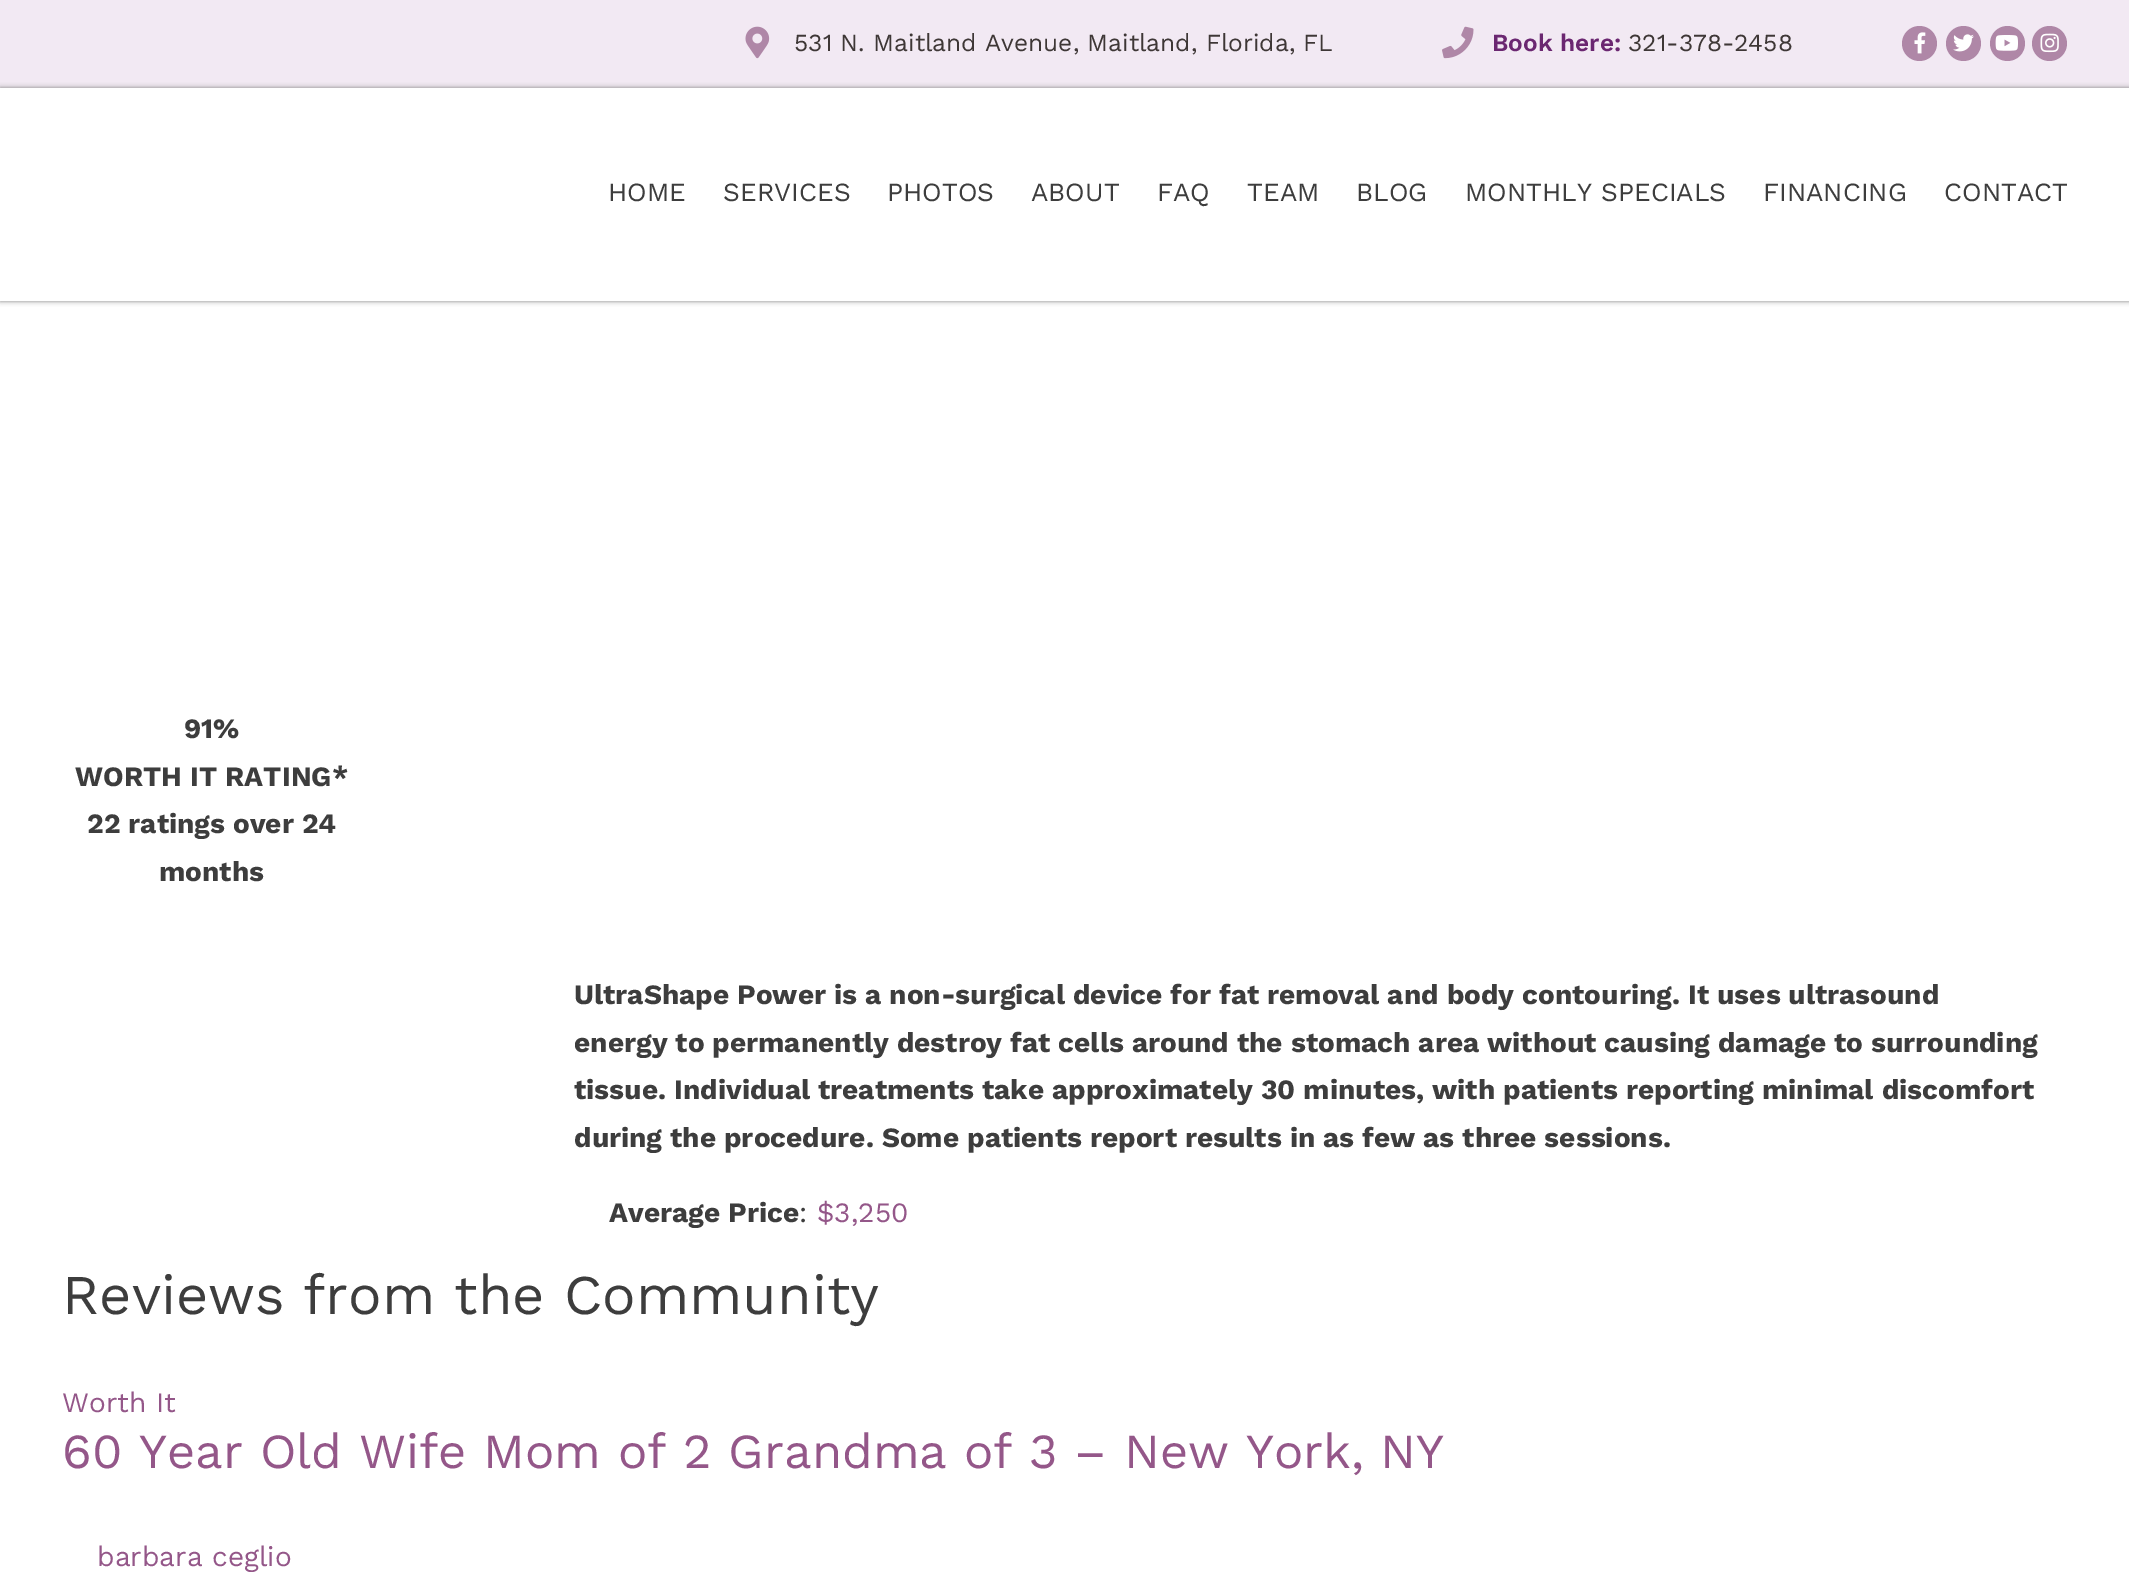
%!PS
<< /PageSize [2129 1575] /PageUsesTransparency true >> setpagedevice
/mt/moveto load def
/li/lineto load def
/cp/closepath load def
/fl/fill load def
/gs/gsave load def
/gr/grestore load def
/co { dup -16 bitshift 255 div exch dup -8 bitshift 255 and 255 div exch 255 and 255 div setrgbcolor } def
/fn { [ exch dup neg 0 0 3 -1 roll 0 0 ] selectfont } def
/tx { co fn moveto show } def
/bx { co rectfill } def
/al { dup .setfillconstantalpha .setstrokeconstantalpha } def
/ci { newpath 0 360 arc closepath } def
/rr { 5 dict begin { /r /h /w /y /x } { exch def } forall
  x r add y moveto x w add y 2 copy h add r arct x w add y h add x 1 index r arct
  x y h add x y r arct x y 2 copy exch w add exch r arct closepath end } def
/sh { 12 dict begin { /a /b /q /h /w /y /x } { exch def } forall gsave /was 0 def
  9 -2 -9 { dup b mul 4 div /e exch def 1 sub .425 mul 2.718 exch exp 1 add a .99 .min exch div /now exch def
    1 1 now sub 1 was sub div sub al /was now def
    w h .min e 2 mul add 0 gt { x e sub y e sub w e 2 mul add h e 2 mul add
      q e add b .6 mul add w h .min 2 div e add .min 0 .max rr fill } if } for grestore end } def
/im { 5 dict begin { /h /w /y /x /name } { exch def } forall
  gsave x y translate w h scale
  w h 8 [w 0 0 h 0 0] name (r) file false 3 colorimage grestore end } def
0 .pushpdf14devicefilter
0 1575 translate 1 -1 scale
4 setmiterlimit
0 0 2129 1575 16#FFFFFF bx
0 0 2129 88 16#F2E9F3 bx
(media/1.raw) 745 26 25 33 im
(media/2.raw) 1442 26 32 33 im
16#AF87A7 co
1919.5 43.5 17.5 ci fl
(media/3.raw) 1914 32 12 22 im
1963.5 43.5 17.5 ci fl
(media/4.raw) 1953 34 21 18 im
2007.5 43.5 17.5 ci fl
(media/5.raw) 1995 35 23 16 im
2049.5 43.5 17.5 ci fl
(media/6.raw) 2040 33 19 20 im
gs
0 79 mt 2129 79 li 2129 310 li 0 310 li cp 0 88 mt 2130 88 li 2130 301 li 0 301 li cp eoclip newpath
16#808080 co
0 88 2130 213 0 2.5 1 sh
gr
(531 N. Maitland Avenue, Maitland, Florida, FL) 794 51 /WorkSans-Regular 24.5 16#3E3736 tx
(Book here:) 1492 51 /WorkSans-SemiBold 24.5 16#6B2771 tx
(321-378-2458) 1628 51 /WorkSans-Regular 24.5 16#3E3736 tx
(HOME) 608 201 /WorkSans-Regular 26.25 16#3D3D3D tx
(SERVICES) 723 201 /WorkSans-Regular 26.25 16#3D3D3D tx
(PHOTOS) 887 201 /WorkSans-Regular 26.25 16#3D3D3D tx
(ABOUT) 1031 201 /WorkSans-Regular 26.25 16#3D3D3D tx
(FAQ) 1157 201 /WorkSans-Regular 26.25 16#3D3D3D tx
(TEAM) 1247 201 /WorkSans-Regular 26.25 16#3D3D3D tx
(BLOG) 1356 201 /WorkSans-Regular 26.25 16#3D3D3D tx
(MONTHLY SPECIALS) 1465 201 /WorkSans-Regular 26.25 16#3D3D3D tx
(FINANCING) 1763 201 /WorkSans-Regular 26.25 16#3D3D3D tx
(CONTACT) 1944 201 /WorkSans-Regular 26.25 16#3D3D3D tx
(91%) 184 738 /WorkSans-Bold 28 16#3D3D3D tx
(WORTH IT RATING*) 75 786 /WorkSans-Bold 28 16#3D3D3D tx
(22 ratings over 24) 87 833 /WorkSans-Bold 28 16#3D3D3D tx
(months) 159 881 /WorkSans-Bold 28 16#3D3D3D tx
(UltraShape Power is a non-surgical device for fat removal and body contouring. It uses ultrasound) 574 1004 /WorkSans-Bold 28 16#3D3D3D tx
(energy to permanently destroy fat cells around the stomach area without causing damage to surrounding) 574 1052 /WorkSans-Bold 28 16#3D3D3D tx
(tissue. Individual treatments take approximately 30 minutes, with patients reporting minimal discomfort) 574 1099 /WorkSans-Bold 28 16#3D3D3D tx
(during the procedure. Some patients report results in as few as three sessions.) 574 1147 /WorkSans-Bold 28 16#3D3D3D tx
(Average Price) 609 1222 /WorkSans-Bold 28 16#3D3D3D tx
(:) 799 1222 /WorkSans-Regular 28 16#3D3D3D tx
($3,250) 817 1222 /WorkSans-Regular 28 16#945789 tx
(Reviews from the Community) 62 1314 /WorkSans-Regular 56 16#3D3D3D tx
(Worth It) 62 1412 /WorkSans-Regular 28 16#945789 tx
(60 Year Old Wife Mom of 2 Grandma of 3 – New York, NY) 62 1468 /WorkSans-Regular 49 16#945789 tx
(barbara ceglio) 97 1566 /WorkSans-Regular 28 16#945789 tx
.poppdf14devicefilter showpage
